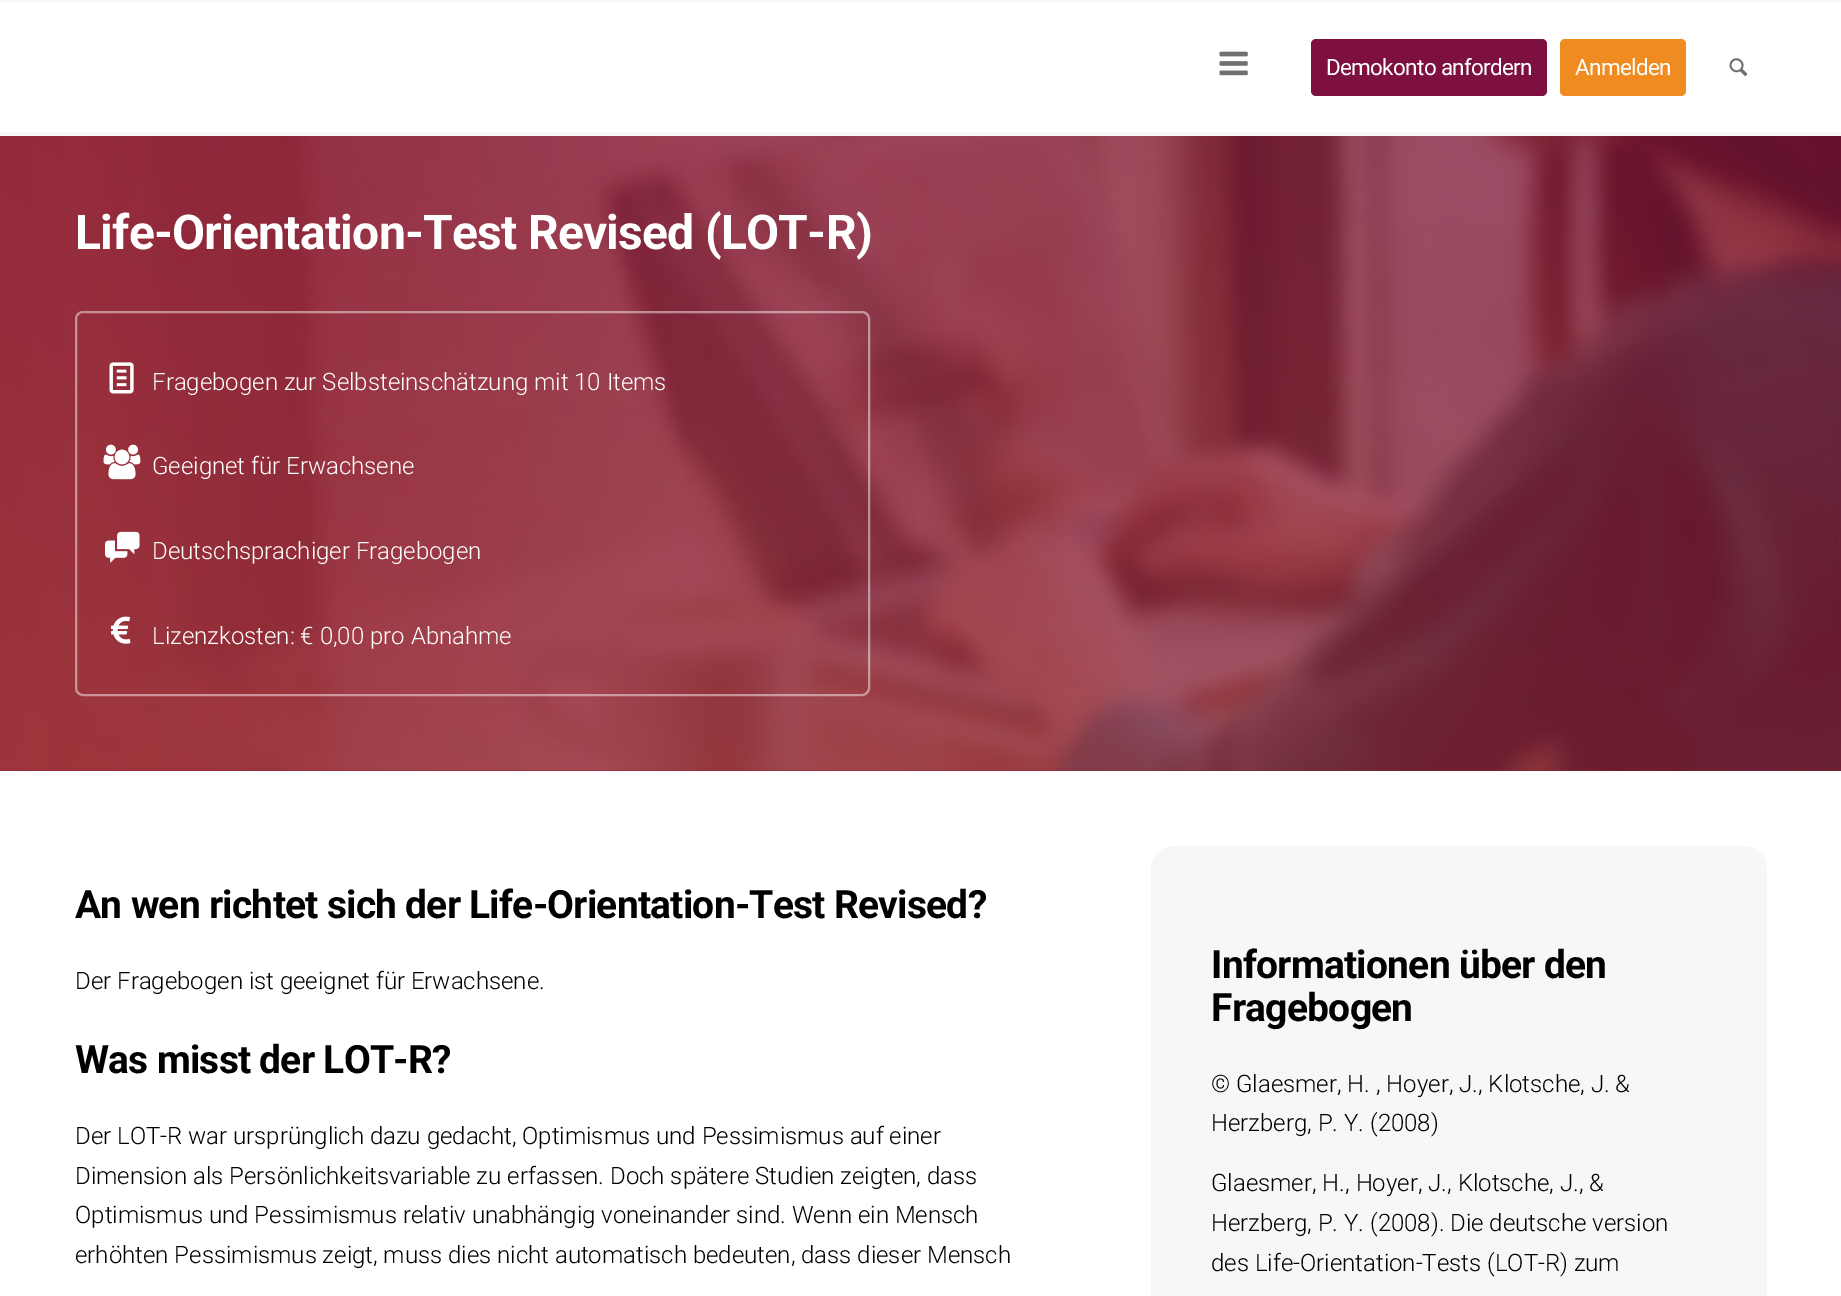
%!PS
<< /PageSize [1841 1296] /PageUsesTransparency true >> setpagedevice
/mt/moveto load def
/fl/fill load def
/st/stroke load def
/lw/setlinewidth load def
/co { dup -16 bitshift 255 div exch dup -8 bitshift 255 and 255 div exch 255 and 255 div setrgbcolor } def
/fn { [ exch dup neg 0 0 3 -1 roll 0 0 ] selectfont } def
/tx { co fn moveto show } def
/bx { co rectfill } def
/al { dup .setfillconstantalpha .setstrokeconstantalpha } def
/rr { 5 dict begin { /r /h /w /y /x } { exch def } forall
  x r add y moveto x w add y 2 copy h add r arct x w add y h add x 1 index r arct
  x y h add x y r arct x y 2 copy exch w add exch r arct closepath end } def
/im { 5 dict begin { /h /w /y /x /name } { exch def } forall
  gsave x y translate w h scale
  w h 8 [w 0 0 h 0 0] name (r) file false 3 colorimage grestore end } def
0 .pushpdf14devicefilter
0 1296 translate 1 -1 scale
4 setmiterlimit
0 0 1841 1296 16#FFFFFF bx
0 0 1841 2 16#F8F8F8 bx
(media/3.raw) 0 132 1841 639 im
0 134 1841 2 16#F8F8F8 bx
(media/1.raw) 1219 51 29 25 im
16#7D103F co
1311 39 236 57 5 rr fl
16#EF8B20 co
1560 39 126 57 5 rr fl
(media/2.raw) 1729 58 19 18 im
0.95 al
0 132 1841 2 16#FFFFFF bx
0.47 al
2 lw
76 312 793 383 7 rr st
1 al
(media/4.raw) 109 362 25 32 im
(media/5.raw) 103 444 38 36 im
(media/6.raw) 105 531 35 32 im
(media/7.raw) 111 616 20 28 im
16#F7F7F7 co
1151 846 616 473 23 rr fl
/Roboto-Regular 22.5 fn
16#FFFFFF co
1326 75 mt -.7 0 (Demokonto anfordern) ashow
1575 75 mt -.7 0 (Anmelden) ashow
/Roboto-Bold 48 fn
75 249 mt -.75 0 (Life-Orientation-Test Revised \(LOT-R\)) ashow
(Fragebogen zur Selbsteinschätzung mit 10 Items) 152 390 /Roboto-Light 24 16#FFFFFF tx
(Geeignet für Erwachsene) 152 474 /Roboto-Light 24 16#FFFFFF tx
(Deutschsprachiger Fragebogen) 152 559 /Roboto-Light 24 16#FFFFFF tx
(Lizenzkosten: € 0,00 pro Abnahme) 152 644 /Roboto-Light 24 16#FFFFFF tx
/Roboto-Bold 39 fn
16#000000 co
75 918 mt -.75 0 (An wen richtet sich der Life-Orientation-Test Revised?) ashow
(Der Fragebogen ist geeignet für Erwachsene.) 75 989 /Roboto-Light 24 16#000000 tx
/Roboto-Bold 39 fn
75 1073 mt -.75 0 (Was misst der LOT-R?) ashow
(Der LOT-R war ursprünglich dazu gedacht, Optimismus und Pessimismus auf einer) 75 1144 /Roboto-Light 24 16#000000 tx
(Dimension als Persönlichkeitsvariable zu erfassen. Doch spätere Studien zeigten, dass) 75 1184 /Roboto-Light 24 16#000000 tx
(Optimismus und Pessimismus relativ unabhängig voneinander sind. Wenn ein Mensch) 75 1223 /Roboto-Light 24 16#000000 tx
(erhöhten Pessimismus zeigt, muss dies nicht automatisch bedeuten, dass dieser Mensch) 75 1263 /Roboto-Light 24 16#000000 tx
/Roboto-Bold 39 fn
1211 978 mt -.75 0 (Informationen über den) ashow
1211 1021 mt -.75 0 (Fragebogen) ashow
(© Glaesmer, H. , Hoyer, J., Klotsche, J. &) 1211 1092 /Roboto-Light 24 16#000000 tx
(Herzberg, P. Y. \(2008\)) 1211 1131 /Roboto-Light 24 16#000000 tx
(Glaesmer, H., Hoyer, J., Klotsche, J., &) 1211 1191 /Roboto-Light 24 16#000000 tx
(Herzberg, P. Y. \(2008\). Die deutsche version) 1211 1231 /Roboto-Light 24 16#000000 tx
(des Life-Orientation-Tests \(LOT-R\) zum) 1211 1271 /Roboto-Light 24 16#000000 tx
.poppdf14devicefilter showpage
